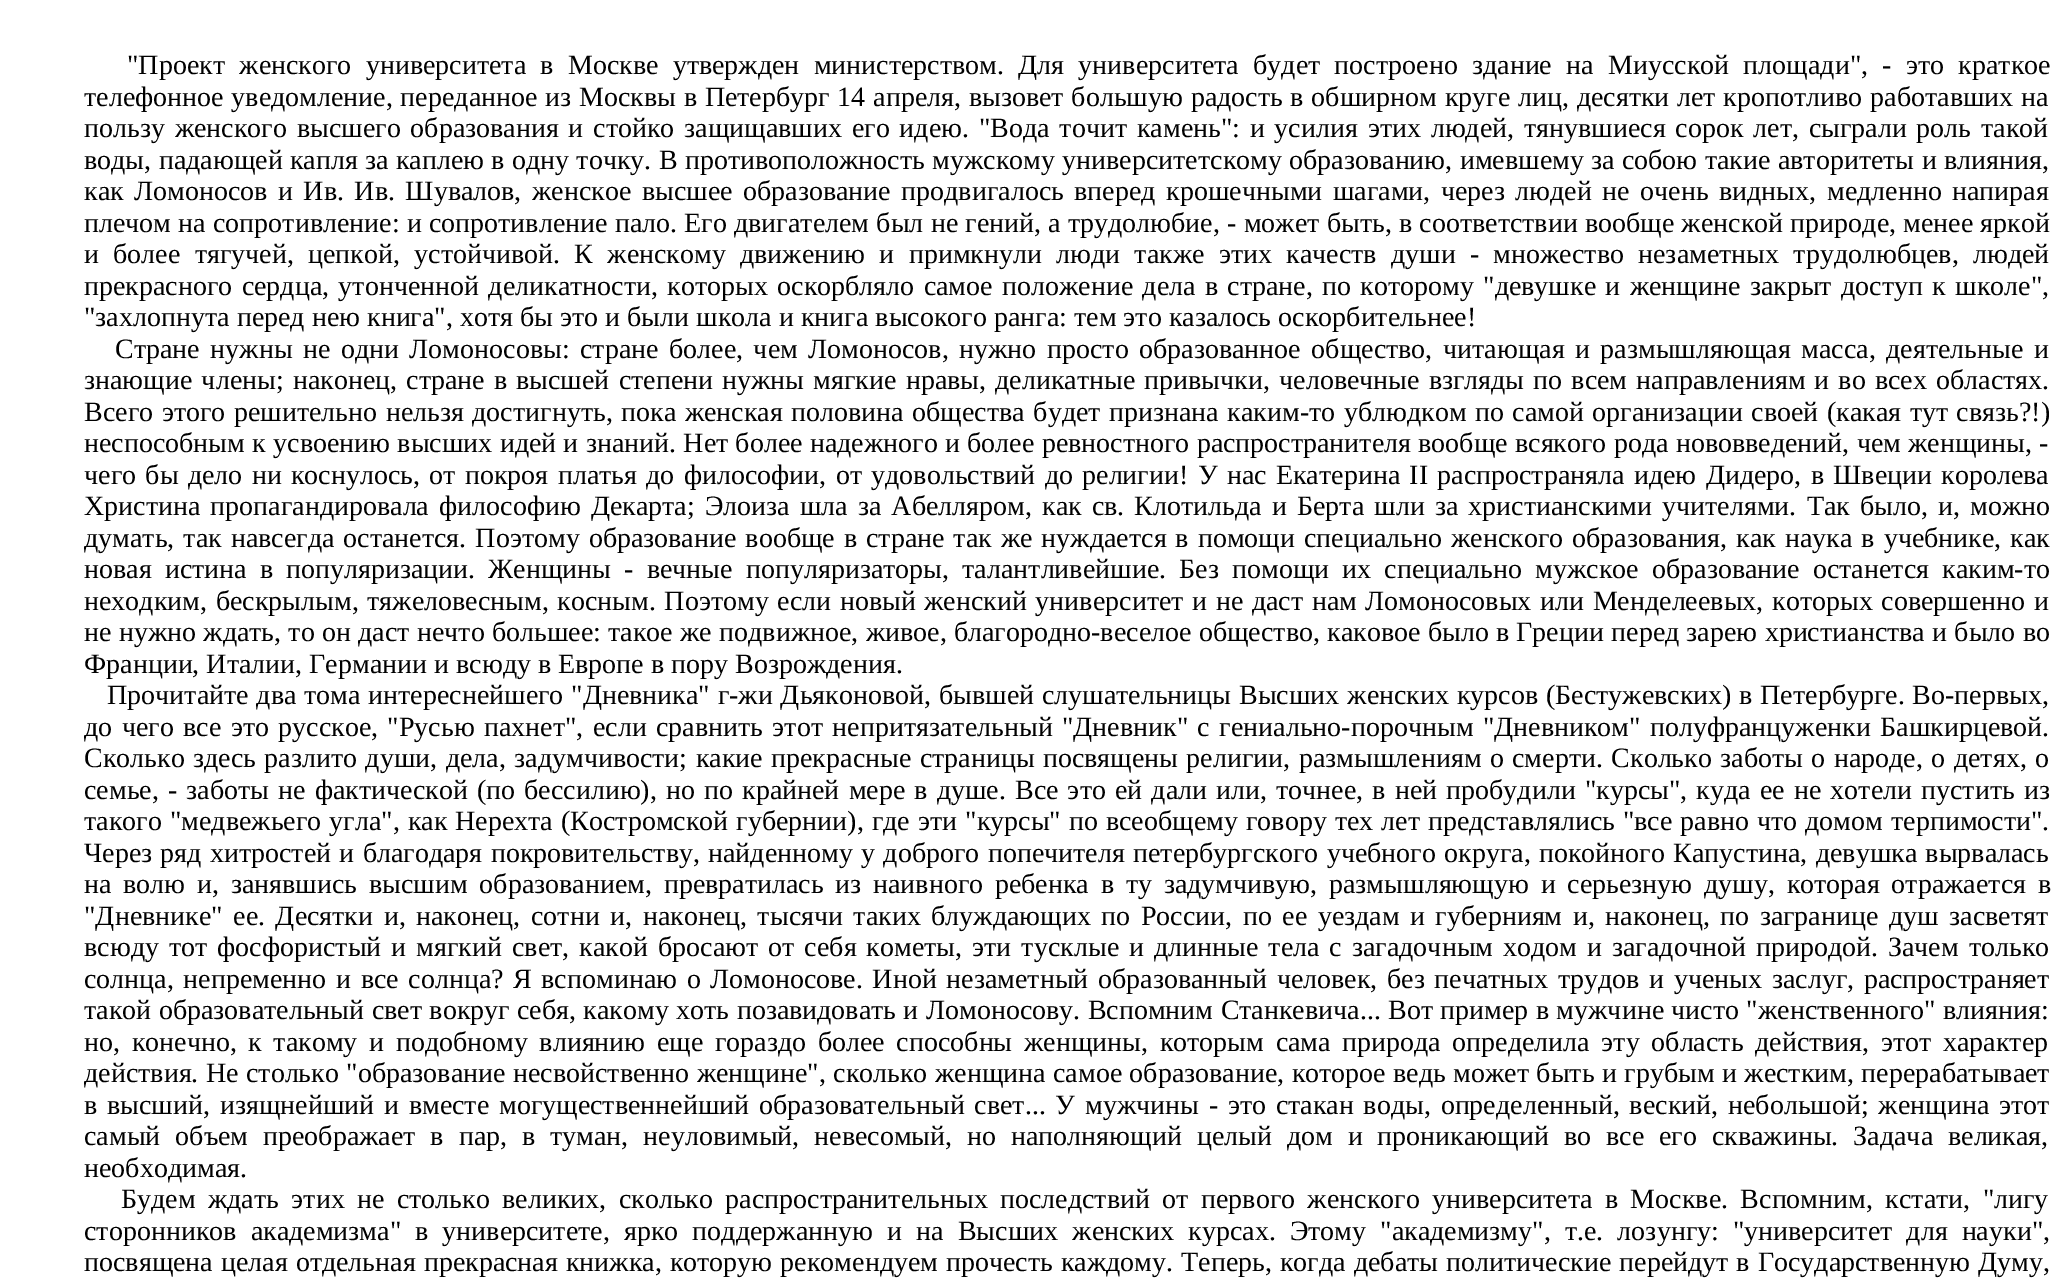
%!PS
<< /PageSize [2063 1279] >> setpagedevice
/mt/moveto load def
/co { dup -16 bitshift 255 div exch dup -8 bitshift 255 and 255 div exch 255 and 255 div setrgbcolor } def
/fn { [ exch dup neg 0 0 3 -1 roll 0 0 ] selectfont } def
/tx { co fn moveto show } def
/bx { co rectfill } def
0 1279 translate 1 -1 scale
4 setmiterlimit
0 0 2063 1279 16#FFFFFF bx
/LiberationSerif-Regular 28 fn
16#000000 co
127 74 mt 7.25 0 32 ("Проект женского университета в Москве утвержден министерством. Для университета будет построено здание на Миусской площади", - это краткое) widthshow
84 106 mt .75 0 32 (телефонное уведомление, переданное из Москвы в Петербург 14 апреля, вызовет большую радость в обширном круге лиц, десятки лет кропотливо работавших на) widthshow
84 137 mt 2.8 0 32 (пользу женского высшего образования и стойко защищавших его идею. "Вода точит камень": и усилия этих людей, тянувшиеся сорок лет, сыграли роль такой) widthshow
84 169 mt .3 0 32 (воды, падающей капля за каплею в одну точку. В противоположность мужскому университетскому образованию, имевшему за собою такие авторитеты и влияния,) widthshow
84 200 mt 3.5 0 32 (как Ломоносов и Ив. Ив. Шувалов, женское высшее образование продвигалось вперед крошечными шагами, через людей не очень видных, медленно напирая) widthshow
84 232 mt .2 0 32 (плечом на сопротивление: и сопротивление пало. Его двигателем был не гений, а трудолюбие, - может быть, в соответствии вообще женской природе, менее яркой) widthshow
84 263 mt 7.25 0 32 (и более тягучей, цепкой, устойчивой. К женскому движению и примкнули люди также этих качеств души - множество незаметных трудолюбцев, людей) widthshow
84 295 mt 2.3 0 32 (прекрасного сердца, утонченной деликатности, которых оскорбляло самое положение дела в стране, по которому "девушке и женщине закрыт доступ к школе",) widthshow
("захлопнута перед нею книга", хотя бы это и были школа и книга высокого ранга: тем это казалось оскорбительнее!) 84 326 /LiberationSerif-Regular 28 16#000000 tx
115 358 mt 3.5 0 32 (Стране нужны не одни Ломоносовы: стране более, чем Ломоносов, нужно просто образованное общество, читающая и размышляющая масса, деятельные и) widthshow
84 389 mt 2.1 0 32 (знающие члены; наконец, стране в высшей степени нужны мягкие нравы, деликатные привычки, человечные взгляды по всем направлениям и во всех областях.) widthshow
84 421 mt 1.5 0 32 (Всего этого решительно нельзя достигнуть, пока женская половина общества будет признана каким-то ублюдком по самой организации своей \(какая тут связь?!\)) widthshow
84 452 mt .25 0 32 (неспособным к усвоению высших идей и знаний. Нет более надежного и более ревностного распространителя вообще всякого рода нововведений, чем женщины, -) widthshow
84 484 mt 2.3 0 32 (чего бы дело ни коснулось, от покроя платья до философии, от удовольствий до религии! У нас Екатерина II распространяла идею Дидеро, в Швеции королева) widthshow
84 515 mt 3.1 0 32 (Христина пропагандировала философию Декарта; Элоиза шла за Абелляром, как св. Клотильда и Берта шли за христианскими учителями. Так было, и, можно) widthshow
84 547 mt 2 0 32 (думать, так навсегда останется. Поэтому образование вообще в стране так же нуждается в помощи специально женского образования, как наука в учебнике, как) widthshow
84 578 mt 6.1 0 32 (новая истина в популяризации. Женщины - вечные популяризаторы, талантливейшие. Без помощи их специально мужское образование останется каким-то) widthshow
84 610 mt 1.6 0 32 (неходким, бескрылым, тяжеловесным, косным. Поэтому если новый женский университет и не даст нам Ломоносовых или Менделеевых, которых совершенно и) widthshow
84 641 mt .25 0 32 (не нужно ждать, то он даст нечто большее: такое же подвижное, живое, благородно-веселое общество, каковое было в Греции перед зарею христианства и было во) widthshow
(Франции, Италии, Германии и всюду в Европе в пору Возрождения.) 84 673 /LiberationSerif-Regular 28 16#000000 tx
107 704 mt .75 0 32 (Прочитайте два тома интереснейшего "Дневника" г-жи Дьяконовой, бывшей слушательницы Высших женских курсов \(Бестужевских\) в Петербурге. Во-первых,) widthshow
84 736 mt 2.4 0 32 (до чего все это русское, "Русью пахнет", если сравнить этот непритязательный "Дневник" с гениально-порочным "Дневником" полуфранцуженки Башкирцевой.) widthshow
84 767 mt 1.4 0 32 (Сколько здесь разлито души, дела, задумчивости; какие прекрасные страницы посвящены религии, размышлениям о смерти. Сколько заботы о народе, о детях, о) widthshow
84 799 mt 2.1 0 32 (семье, - заботы не фактической \(по бессилию\), но по крайней мере в душе. Все это ей дали или, точнее, в ней пробудили "курсы", куда ее не хотели пустить из) widthshow
84 830 mt 1 0 32 (такого "медвежьего угла", как Нерехта \(Костромской губернии\), где эти "курсы" по всеобщему говору тех лет представлялись "все равно что домом терпимости".) widthshow
84 862 mt 1.3 0 32 (Через ряд хитростей и благодаря покровительству, найденному у доброго попечителя петербургского учебного округа, покойного Капустина, девушка вырвалась) widthshow
84 893 mt 4.75 0 32 (на волю и, занявшись высшим образованием, превратилась из наивного ребенка в ту задумчивую, размышляющую и серьезную душу, которая отражается в) widthshow
84 925 mt 3.5 0 32 ("Дневнике" ее. Десятки и, наконец, сотни и, наконец, тысячи таких блуждающих по России, по ее уездам и губерниям и, наконец, по загранице душ засветят) widthshow
84 956 mt 3 0 32 (всюду тот фосфористый и мягкий свет, какой бросают от себя кометы, эти тусклые и длинные тела с загадочным ходом и загадочной природой. Зачем только) widthshow
84 988 mt 2.6 0 32 (солнца, непременно и все солнца? Я вспоминаю о Ломоносове. Иной незаметный образованный человек, без печатных трудов и ученых заслуг, распространяет) widthshow
84 1019 mt .4 0 32 (такой образовательный свет вокруг себя, какому хоть позавидовать и Ломоносову. Вспомним Станкевича... Вот пример в мужчине чисто "женственного" влияния:) widthshow
84 1051 mt 4.6 0 32 (но, конечно, к такому и подобному влиянию еще гораздо более способны женщины, которым сама природа определила эту область действия, этот характер) widthshow
84 1082 mt .4 0 32 (действия. Не столько "образование несвойственно женщине", сколько женщина самое образование, которое ведь может быть и грубым и жестким, перерабатывает) widthshow
84 1114 mt 2.75 0 32 (в высший, изящнейший и вместе могущественнейший образовательный свет... У мужчины - это стакан воды, определенный, веский, небольшой; женщина этот) widthshow
84 1145 mt 7.9 0 32 (самый объем преображает в пар, в туман, неуловимый, невесомый, но наполняющий целый дом и проникающий во все его скважины. Задача великая,) widthshow
(необходимая.) 84 1177 /LiberationSerif-Regular 28 16#000000 tx
121 1208 mt 5.4 0 32 (Будем ждать этих не столько великих, сколько распространительных последствий от первого женского университета в Москве. Вспомним, кстати, "лигу) widthshow
84 1240 mt 7.1 0 32 (сторонников академизма" в университете, ярко поддержанную и на Высших женских курсах. Этому "академизму", т.е. лозунгу: "университет для науки",) widthshow
84 1271 mt 1 0 32 (посвящена целая отдельная прекрасная книжка, которую рекомендуем прочесть каждому. Теперь, когда дебаты политические перейдут в Государственную Думу,) widthshow
showpage
